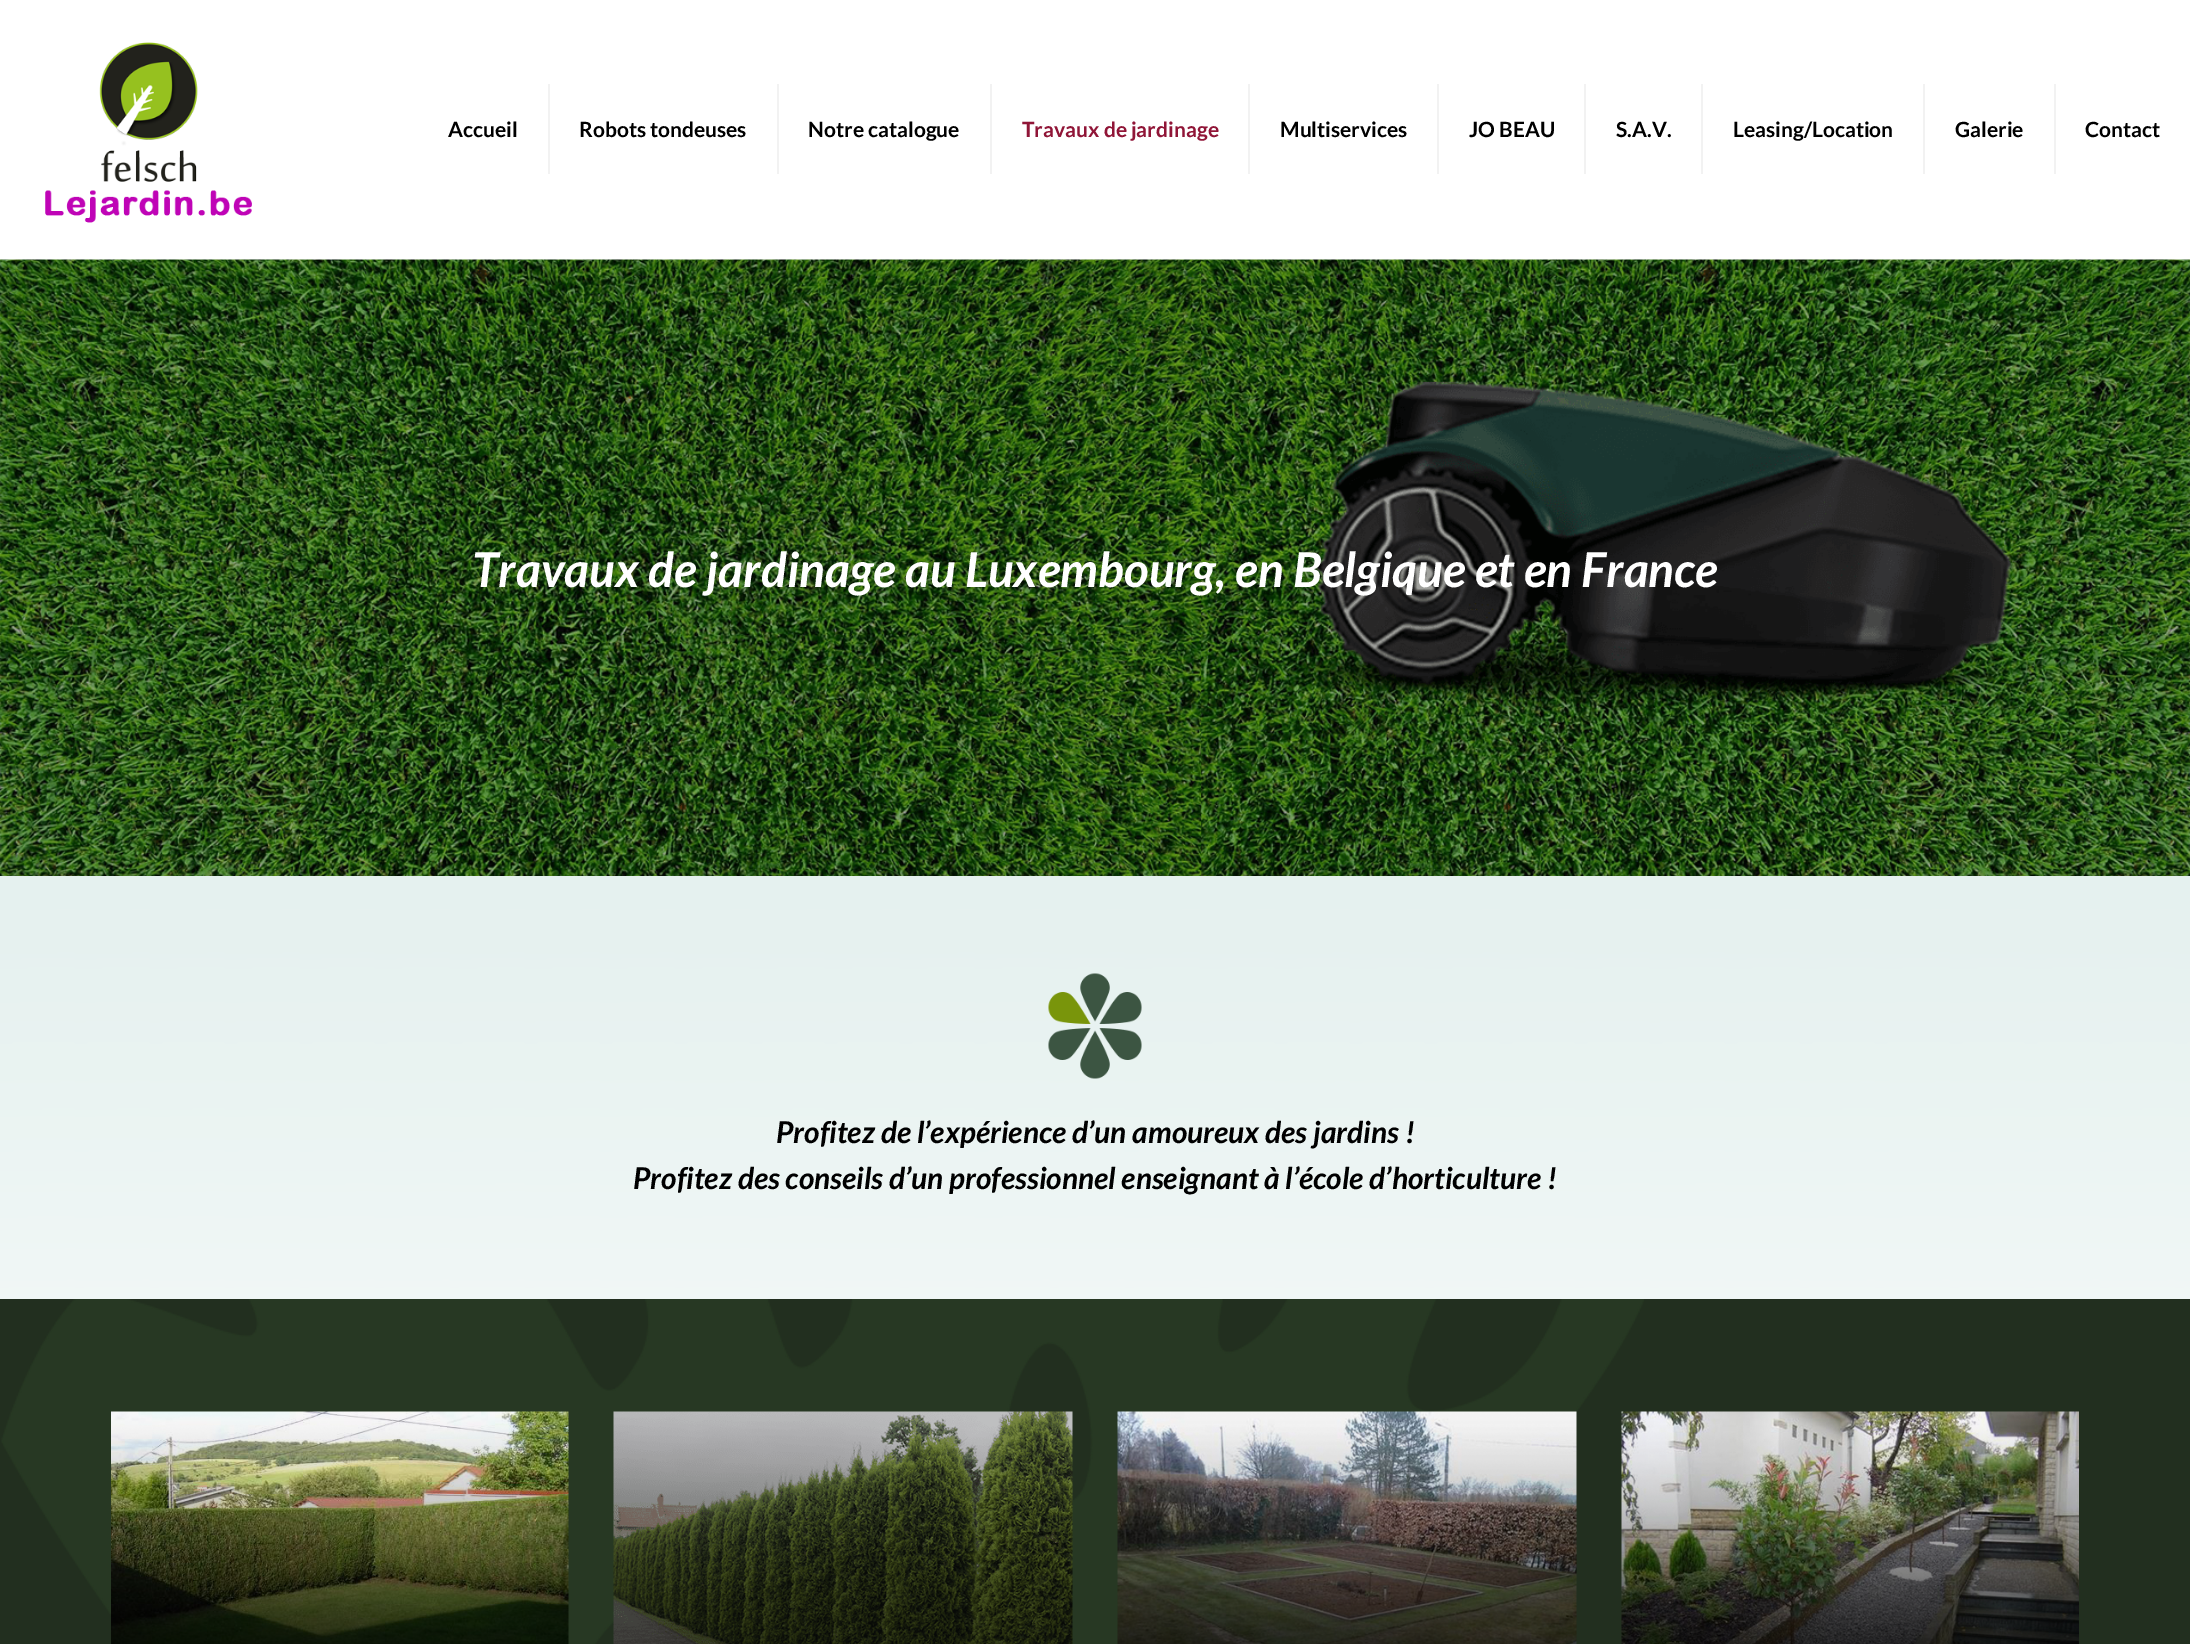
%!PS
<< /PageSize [2190 1644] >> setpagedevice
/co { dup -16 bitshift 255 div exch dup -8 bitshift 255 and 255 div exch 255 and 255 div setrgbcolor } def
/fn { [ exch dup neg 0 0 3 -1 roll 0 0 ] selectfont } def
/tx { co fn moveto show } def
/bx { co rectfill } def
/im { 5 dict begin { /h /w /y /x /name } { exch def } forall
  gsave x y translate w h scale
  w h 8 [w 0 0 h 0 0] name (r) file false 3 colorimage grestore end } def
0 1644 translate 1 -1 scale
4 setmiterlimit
0 0 2190 1644 16#FFFFFF bx
(media/1.raw) 45 42 207 181 im
548 84 2 90 16#F2F2F2 bx
777 84 2 90 16#F2F2F2 bx
990 84 2 90 16#F2F2F2 bx
1248 84 2 90 16#F2F2F2 bx
1437 84 2 90 16#F2F2F2 bx
1584 84 2 90 16#F2F2F2 bx
1701 84 2 90 16#F2F2F2 bx
1923 84 2 90 16#F2F2F2 bx
2054 84 2 90 16#F2F2F2 bx
(media/2.raw) 0 259 2190 617 im
(media/3.raw) 0 876 2190 423 im
(media/4.raw) 1048 973 94 106 im
0 1299 2190 345 16#222F1F bx
(media/5.raw) 1 1299 1643 345 im
(media/6.raw) 111 1411 458 233 im
(media/7.raw) 613 1411 460 233 im
(media/8.raw) 1117 1411 460 233 im
(media/9.raw) 1621 1411 458 233 im
(Accueil) 448 137 /Lato-Bold 21 16#000000 tx
(Robots tondeuses) 579 137 /Lato-Bold 21 16#000000 tx
(Notre catalogue) 808 137 /Lato-Bold 21 16#000000 tx
(Travaux de jardinage) 1022 137 /Lato-Bold 21 16#901537 tx
(Multiservices) 1280 137 /Lato-Bold 21 16#000000 tx
(JO BEAU) 1469 137 /Lato-Bold 21 16#000000 tx
(S.A.V.) 1616 137 /Lato-Bold 21 16#000000 tx
(Leasing/Location) 1733 137 /Lato-Bold 21 16#000000 tx
(Galerie) 1955 137 /Lato-Bold 21 16#000000 tx
(Contact) 2085 137 /Lato-Bold 21 16#000000 tx
(Travaux de jardinage au Luxembourg, en Belgique et en France) 472 587 /Lato-BoldItalic 48 16#FFFFFF tx
(Profitez de l’expérience d’un amoureux des jardins !) 776 1143 /Lato-BoldItalic 30 16#000000 tx
(Profitez des conseils d’un professionnel enseignant à l’école d’horticulture !) 633 1189 /Lato-BoldItalic 30 16#000000 tx
showpage
